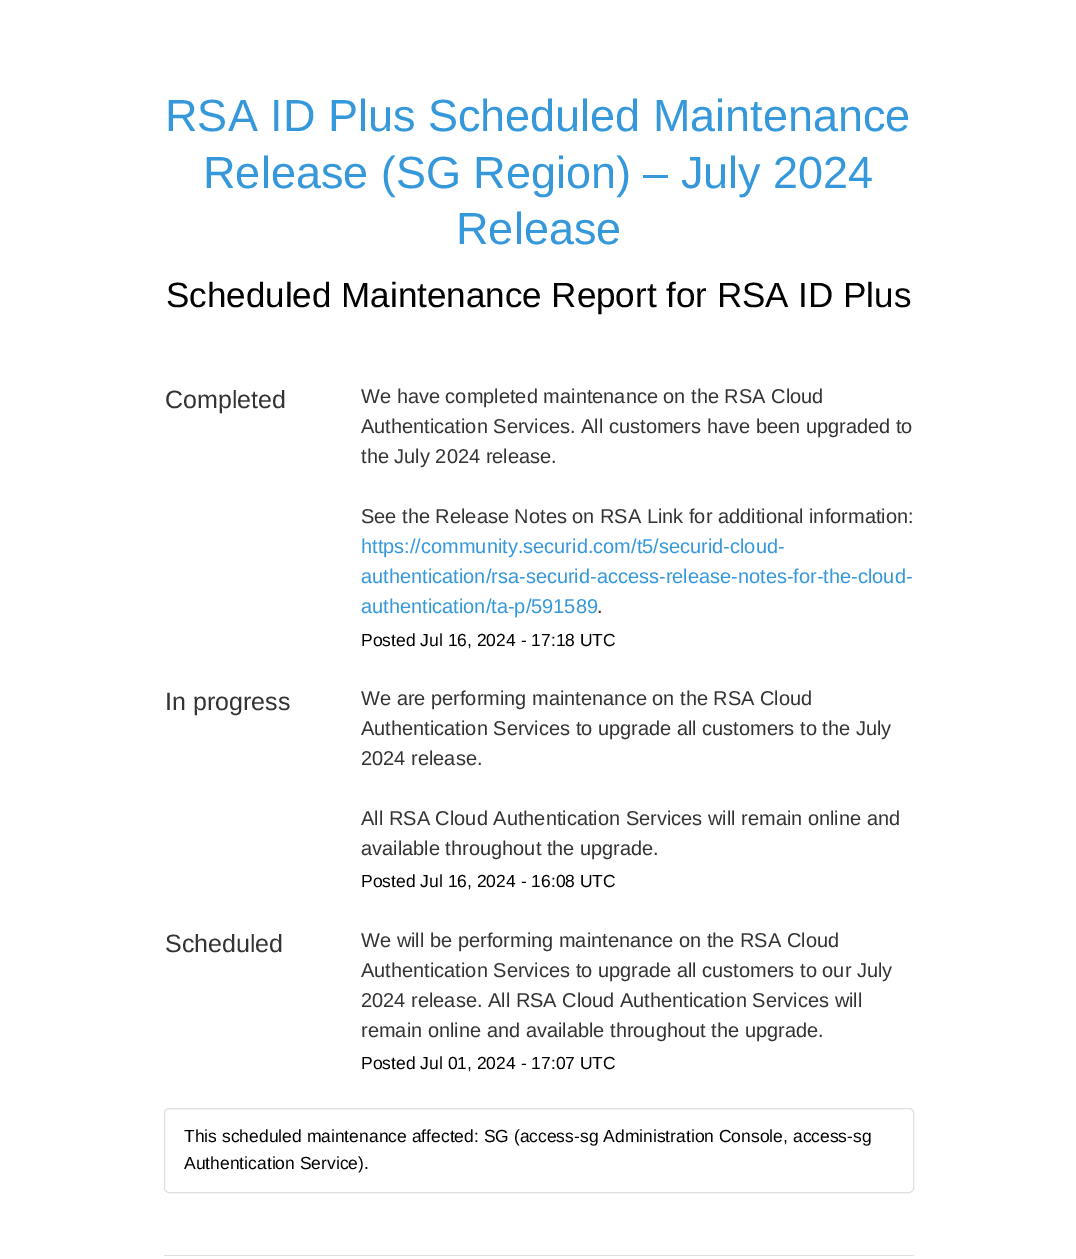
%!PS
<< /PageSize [1076 1259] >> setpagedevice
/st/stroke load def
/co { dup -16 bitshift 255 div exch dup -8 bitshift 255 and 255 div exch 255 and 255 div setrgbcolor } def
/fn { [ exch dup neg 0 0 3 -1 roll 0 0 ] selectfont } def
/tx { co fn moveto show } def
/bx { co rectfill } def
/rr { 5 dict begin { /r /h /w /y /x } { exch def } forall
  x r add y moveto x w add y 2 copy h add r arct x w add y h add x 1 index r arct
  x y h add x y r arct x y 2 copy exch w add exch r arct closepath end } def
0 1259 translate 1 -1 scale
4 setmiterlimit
0 0 1076 1259 16#FFFFFF bx
16#E0E0E0 co
164.5 1108.5 749 84 4.5 rr st
164 1255 750 1 16#E0E0E0 bx
(RSA ID Plus Scheduled Maintenance) 165 131 /LiberationSans-Regular 45 16#3498DB tx
(Release \(SG Region\) – July 2024) 203 188 /LiberationSans-Regular 45 16#3498DB tx
(Release) 456 244 /LiberationSans-Regular 45 16#3498DB tx
(Scheduled Maintenance Report for RSA ID Plus) 166 307 /LiberationSans-Regular 35 16#000000 tx
(Completed) 165 408 /LiberationSans-Regular 25 16#333333 tx
(We have completed maintenance on the RSA Cloud) 361 403 /LiberationSans-Regular 20 16#333333 tx
(Authentication Services. All customers have been upgraded to) 361 433 /LiberationSans-Regular 20 16#333333 tx
(the July 2024 release.) 361 463 /LiberationSans-Regular 20 16#333333 tx
(See the Release Notes on RSA Link for additional information:) 361 523 /LiberationSans-Regular 20 16#333333 tx
(https://community.securid.com/t5/securid-cloud-) 361 553 /LiberationSans-Regular 20 16#3498DB tx
(authentication/rsa-securid-access-release-notes-for-the-cloud-) 361 583 /LiberationSans-Regular 20 16#3498DB tx
(authentication/ta-p/591589) 361 613 /LiberationSans-Regular 20 16#3498DB tx
(.) 597 613 /LiberationSans-Regular 20 16#333333 tx
(Posted Jul 16, 2024 - 17:18 UTC) 361 646 /LiberationSans-Regular 17.5 16#000000 tx
(In progress) 165 710 /LiberationSans-Regular 25 16#333333 tx
(We are performing maintenance on the RSA Cloud) 361 705 /LiberationSans-Regular 20 16#333333 tx
(Authentication Services to upgrade all customers to the July) 361 735 /LiberationSans-Regular 20 16#333333 tx
(2024 release.) 361 765 /LiberationSans-Regular 20 16#333333 tx
(All RSA Cloud Authentication Services will remain online and) 361 825 /LiberationSans-Regular 20 16#333333 tx
(available throughout the upgrade.) 361 855 /LiberationSans-Regular 20 16#333333 tx
(Posted Jul 16, 2024 - 16:08 UTC) 361 887 /LiberationSans-Regular 17.5 16#000000 tx
(Scheduled) 165 952 /LiberationSans-Regular 25 16#333333 tx
(We will be performing maintenance on the RSA Cloud) 361 947 /LiberationSans-Regular 20 16#333333 tx
(Authentication Services to upgrade all customers to our July) 361 977 /LiberationSans-Regular 20 16#333333 tx
(2024 release. All RSA Cloud Authentication Services will) 361 1007 /LiberationSans-Regular 20 16#333333 tx
(remain online and available throughout the upgrade.) 361 1037 /LiberationSans-Regular 20 16#333333 tx
(Posted Jul 01, 2024 - 17:07 UTC) 361 1069 /LiberationSans-Regular 17.5 16#000000 tx
(This scheduled maintenance affected: SG \(access-sg Administration Console, access-sg) 184 1142 /LiberationSans-Regular 17.5 16#000000 tx
(Authentication Service\).) 184 1169 /LiberationSans-Regular 17.5 16#000000 tx
showpage
